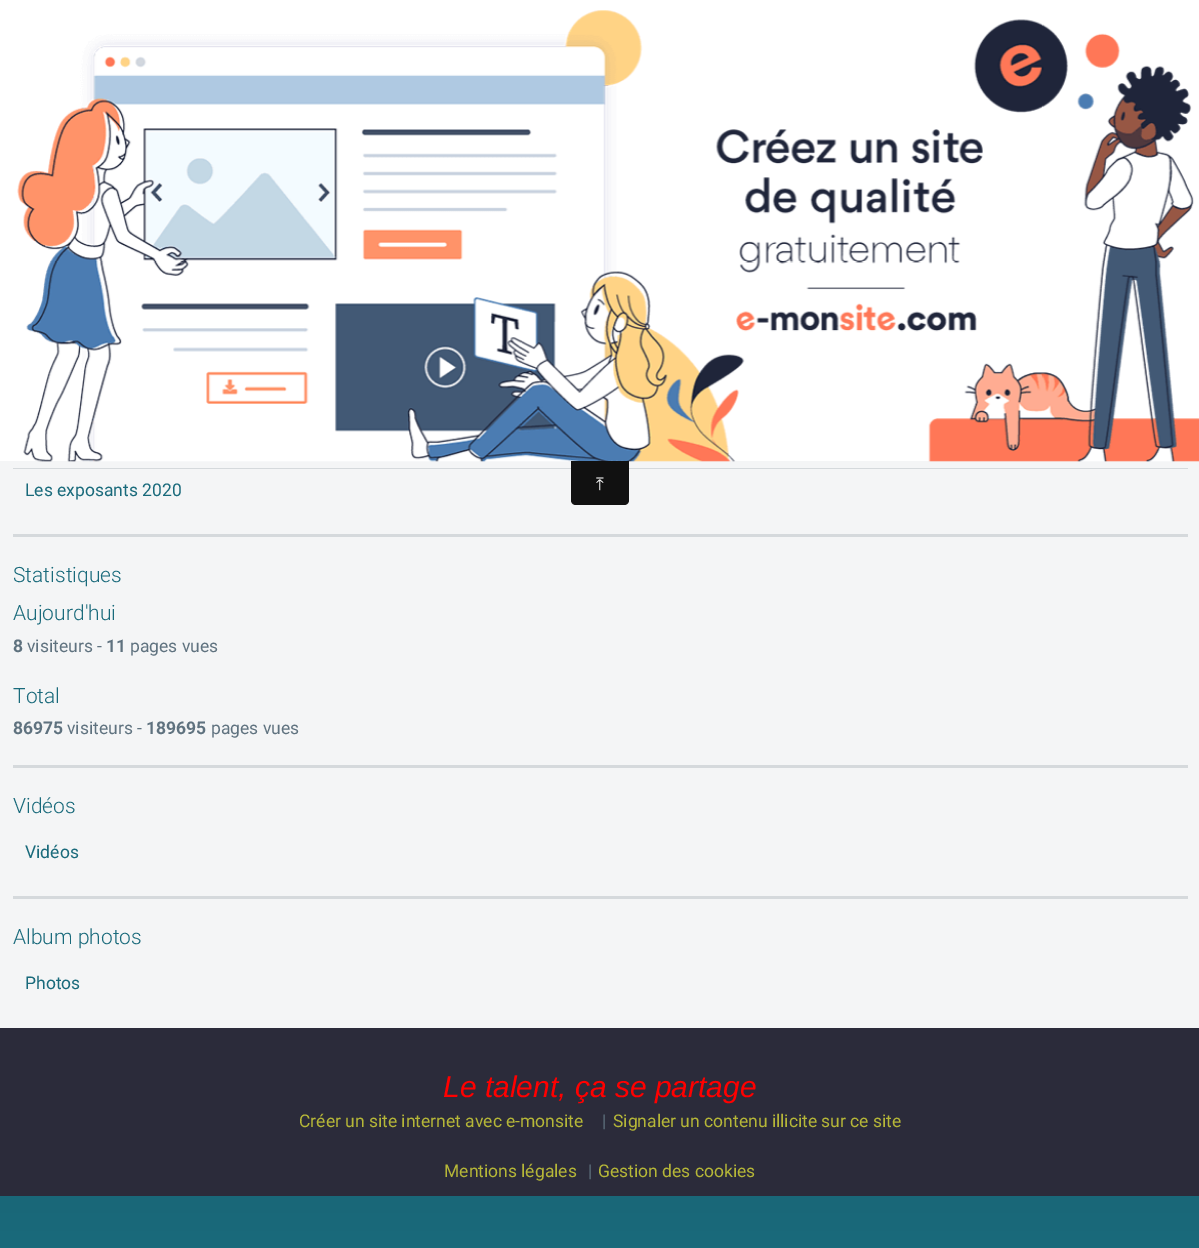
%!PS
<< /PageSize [1199 1248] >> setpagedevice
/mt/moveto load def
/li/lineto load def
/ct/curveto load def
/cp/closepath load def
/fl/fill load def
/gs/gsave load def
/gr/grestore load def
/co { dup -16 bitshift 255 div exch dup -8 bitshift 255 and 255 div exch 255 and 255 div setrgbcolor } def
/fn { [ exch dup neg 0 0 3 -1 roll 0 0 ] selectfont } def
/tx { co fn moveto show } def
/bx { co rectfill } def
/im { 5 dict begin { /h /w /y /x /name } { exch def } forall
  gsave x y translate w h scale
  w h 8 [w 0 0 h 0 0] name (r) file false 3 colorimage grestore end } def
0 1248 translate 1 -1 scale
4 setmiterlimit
0 0 1199 1248 16#FFFFFF bx
gs 0 1196 mt 1199 1196 li 1199 1248 li 0 1248 li cp clip newpath
<< /ShadingType 2 /ColorSpace /DeviceRGB /Coords [600 0 600 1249] /Extend [true true] /Function << /FunctionType 3 /Domain [0 1] /Functions [<< /FunctionType 2 /Domain [0 1] /C0 [.169 .169 .227] /C1 [.169 .169 .227] /N 1 >> << /FunctionType 2 /Domain [0 1] /C0 [.169 .169 .227] /C1 [.098 .416 .482] /N 1 >>] /Bounds [.11] /Encode [0 1 0 1] >> >> shfill gr
0 461 1199 567 16#F4F5F6 bx
13 468 1175 1 16#D5D9DC bx
13 534 1175 3 16#D5D9DC bx
13 765 1175 3 16#D5D9DC bx
13 896 1175 3 16#D5D9DC bx
(media/1.raw) 17 10 1182 452 im
16#111111 co
571 461 mt 629 461 li 629 500 li 629 503 627 505 624 505 ct 576 505 li 573 505 571 503 571 500 ct cp fl
0 1028 1199 168 16#2B2B3A bx
(Les exposants 2020) 25 496 /Roboto-Regular 17.5 16#196A7B tx
(Statistiques) 13 582 /Roboto-Light 21 16#196A7B tx
(Aujourd'hui) 13 620 /Roboto-Light 21 16#196A7B tx
(8) 13 652 /Roboto-Bold 17.5 16#5F727F tx
(visiteurs -) 27 652 /Roboto-Regular 17.5 16#5F727F tx
(11) 106 652 /Roboto-Bold 17.5 16#5F727F tx
(pages vues) 130 652 /Roboto-Regular 17.5 16#5F727F tx
(Total) 13 703 /Roboto-Light 21 16#196A7B tx
(86975) 13 734 /Roboto-Bold 17.5 16#5F727F tx
(visiteurs -) 67 734 /Roboto-Regular 17.5 16#5F727F tx
(189695) 146 734 /Roboto-Bold 17.5 16#5F727F tx
(pages vues) 211 734 /Roboto-Regular 17.5 16#5F727F tx
(Vidéos) 13 813 /Roboto-Light 21 16#196A7B tx
(Vidéos) 25 858 /Roboto-Regular 17.5 16#196A7B tx
(Album photos) 13 944 /Roboto-Light 21 16#196A7B tx
(Photos) 25 989 /Roboto-Regular 17.5 16#196A7B tx
(⤒) 596 490 /FreeSerif-Regular 17.5 16#FFFFFF tx
(Le talent, ça se partage) 443 1097 /LiberationSans-Italic 30 16#FF0000 tx
(Créer un site internet avec e-monsite) 299 1127 /Roboto-Regular 17.5 16#B6B738 tx
(|) 602 1127 /Roboto-Regular 17.5 16#5F727F tx
(Signaler un contenu illicite sur ce site) 613 1127 /Roboto-Regular 17.5 16#B6B738 tx
(Mentions légales) 444 1177 /Roboto-Regular 17.5 16#B6B738 tx
(|) 588 1177 /Roboto-Regular 17.5 16#5F727F tx
(Gestion des cookies) 598 1177 /Roboto-Regular 17.5 16#B6B738 tx
showpage
